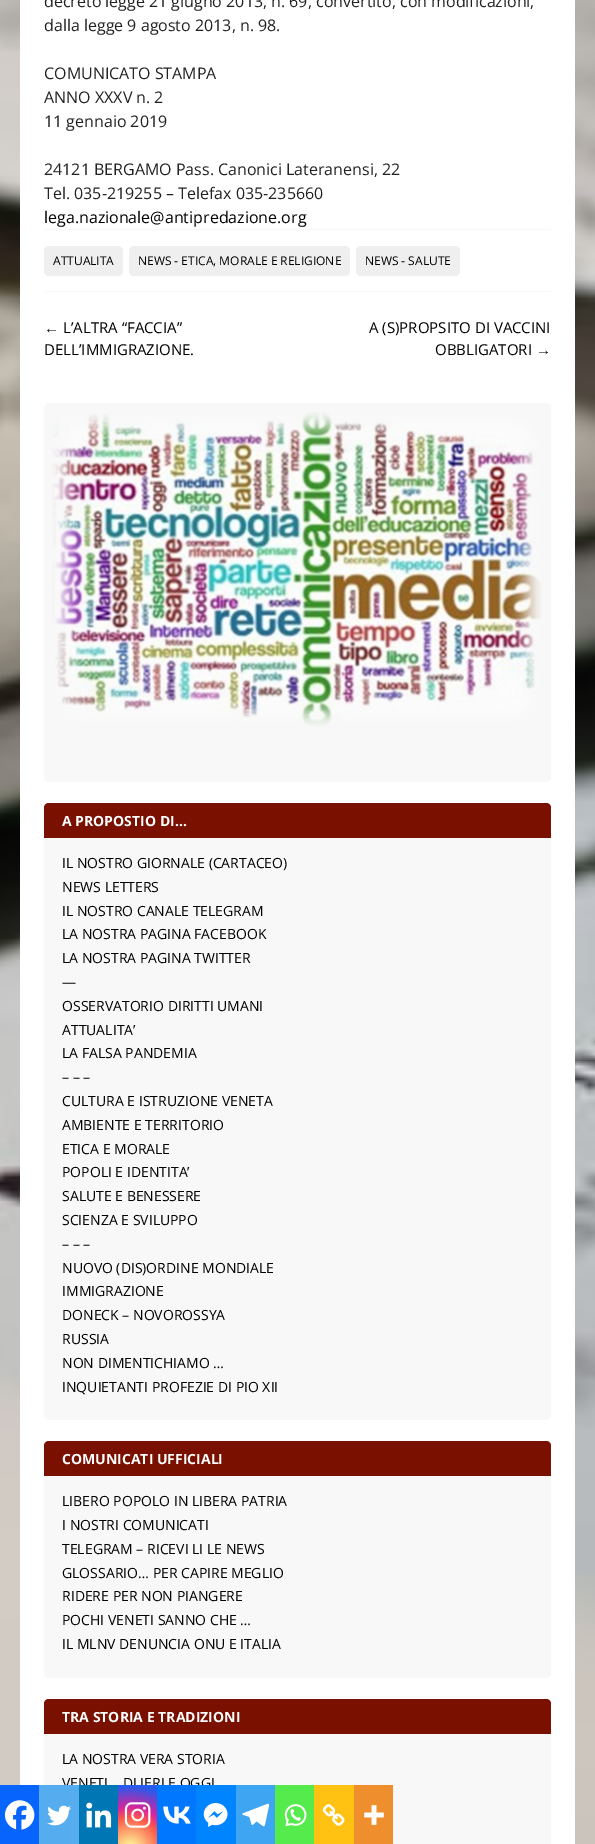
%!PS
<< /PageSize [595 1844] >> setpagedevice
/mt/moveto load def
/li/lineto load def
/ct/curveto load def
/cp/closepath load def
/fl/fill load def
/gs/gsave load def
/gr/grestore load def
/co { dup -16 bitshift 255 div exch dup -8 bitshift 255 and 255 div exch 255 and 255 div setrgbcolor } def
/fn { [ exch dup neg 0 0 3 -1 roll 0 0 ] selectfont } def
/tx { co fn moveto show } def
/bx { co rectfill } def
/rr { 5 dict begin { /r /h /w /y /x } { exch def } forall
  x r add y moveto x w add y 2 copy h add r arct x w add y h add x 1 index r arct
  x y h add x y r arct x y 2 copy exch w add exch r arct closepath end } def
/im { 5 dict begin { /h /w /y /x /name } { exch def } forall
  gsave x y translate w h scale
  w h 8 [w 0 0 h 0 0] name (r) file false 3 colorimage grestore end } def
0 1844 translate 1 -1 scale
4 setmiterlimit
0 0 595 1844 16#FFFFFF bx
(media/1.raw) 0 0 595 1844 im
20 0 555 1844 16#FFFFFF bx
44 229 507 1 16#F8F8F8 bx
0 1785 39 59 16#0765FE bx
(media/2.raw) 4 1800 31 30 im
16#F8F8F8 co
44 1699 507 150 5 rr fl
236 1785 39 59 16#3DA5F1 bx
(media/8.raw) 242 1803 28 24 im
275 1785 39 59 16#55EB4C bx
(media/9.raw) 284 1804 23 22 im
314 1785 40 59 16#FFC112 bx
(media/10.raw) 322 1804 23 22 im
354 1785 39 59 16#EE8E2D bx
(media/11.raw) 364 1805 20 20 im
44 291 507 1 16#F8F8F8 bx
16#EFEFEF co
44 246 79 30 5 rr fl
129 246 221 30 5 rr fl
356 246 104 30 5 rr fl
16#F8F8F8 co
44 403 507 379 5 rr fl
(media/12.raw) 52 412 490 315 im
44 803 507 617 5 rr fl
16#7A1000 co
49 803 mt 546 803 li 549 803 551 805 551 808 ct 551 838 li 44 838 li 44 808 li 44 805 46 803 49 803 ct cp fl
16#F8F8F8 co
44 1441 507 237 5 rr fl
16#7A1000 co
49 1441 mt 546 1441 li 549 1441 551 1443 551 1446 ct 551 1476 li 44 1476 li 44 1446 li 44 1443 46 1441 49 1441 ct cp fl
49 1699 mt 546 1699 li 549 1699 551 1701 551 1704 ct 551 1734 li 44 1734 li 44 1704 li 44 1701 46 1699 49 1699 ct cp fl
(decreto legge 21 giugno 2013, n. 69, convertito, con modificazioni,) 44 7 /OpenSans-Regular 16 16#222222 tx
(dalla legge 9 agosto 2013, n. 98.) 44 31 /OpenSans-Regular 16 16#222222 tx
(COMUNICATO STAMPA) 44 79 /OpenSans-Regular 16 16#222222 tx
(ANNO XXXV n. 2) 44 103 /OpenSans-Regular 16 16#222222 tx
(11 gennaio 2019) 44 127 /OpenSans-Regular 16 16#222222 tx
(24121 BERGAMO Pass. Canonici Lateranensi, 22) 44 175 /OpenSans-Regular 16 16#222222 tx
(Tel. 035-219255 – Telefax 035-235660) 44 199 /OpenSans-Regular 16 16#222222 tx
(lega.nazionale@antipredazione.org) 44 223 /OpenSans-Regular 16 16#000000 tx
(ATTUALITA) 53 265 /OpenSans-Regular 12 16#000000 tx
(NEWS - ETICA, MORALE E RELIGIONE) 138 265 /OpenSans-Regular 12 16#000000 tx
(NEWS - SALUTE) 365 265 /OpenSans-Regular 12 16#000000 tx
(←) 44 333 /LiberationSans-Regular 15 16#000000 tx
(L’ALTRA “FACCIA”) 63 333 /OpenSans-Regular 15 16#000000 tx
(DELL’IMMIGRAZIONE.) 44 355 /OpenSans-Regular 15 16#000000 tx
(A \(S\)PROPSITO DI VACCINI) 369 333 /OpenSans-Regular 15 16#000000 tx
(OBBLIGATORI) 435 355 /OpenSans-Regular 15 16#000000 tx
(→) 536 355 /LiberationSans-Regular 15 16#000000 tx
(A PROPOSTIO DI…) 62 826 /OpenSans-Bold 14 16#FFFFFF tx
(IL NOSTRO GIORNALE \(CARTACEO\)) 62 868 /OpenSans-Regular 14 16#000000 tx
(NEWS LETTERS) 62 892 /OpenSans-Regular 14 16#000000 tx
(IL NOSTRO CANALE TELEGRAM) 62 916 /OpenSans-Regular 14 16#000000 tx
(LA NOSTRA PAGINA FACEBOOK) 62 939 /OpenSans-Regular 14 16#000000 tx
(LA NOSTRA PAGINA TWITTER) 62 963 /OpenSans-Regular 14 16#000000 tx
(—) 62 987 /OpenSans-Regular 14 16#000000 tx
(OSSERVATORIO DIRITTI UMANI) 62 1011 /OpenSans-Regular 14 16#000000 tx
(ATTUALITA’) 62 1035 /OpenSans-Regular 14 16#000000 tx
(LA FALSA PANDEMIA) 62 1058 /OpenSans-Regular 14 16#000000 tx
(– – –) 62 1082 /OpenSans-Regular 14 16#000000 tx
(CULTURA E ISTRUZIONE VENETA) 62 1106 /OpenSans-Regular 14 16#000000 tx
(AMBIENTE E TERRITORIO) 62 1130 /OpenSans-Regular 14 16#000000 tx
(ETICA E MORALE) 62 1154 /OpenSans-Regular 14 16#000000 tx
(POPOLI E IDENTITA’) 62 1177 /OpenSans-Regular 14 16#000000 tx
(SALUTE E BENESSERE) 62 1201 /OpenSans-Regular 14 16#000000 tx
(SCIENZA E SVILUPPO) 62 1225 /OpenSans-Regular 14 16#000000 tx
(– – –) 62 1249 /OpenSans-Regular 14 16#000000 tx
(NUOVO \(DIS\)ORDINE MONDIALE) 62 1273 /OpenSans-Regular 14 16#000000 tx
(IMMIGRAZIONE) 62 1296 /OpenSans-Regular 14 16#000000 tx
(DONECK – NOVOROSSYA) 62 1320 /OpenSans-Regular 14 16#000000 tx
(RUSSIA) 62 1344 /OpenSans-Regular 14 16#000000 tx
(NON DIMENTICHIAMO …) 62 1368 /OpenSans-Regular 14 16#000000 tx
(INQUIETANTI PROFEZIE DI PIO XII) 62 1392 /OpenSans-Regular 14 16#000000 tx
(COMUNICATI UFFICIALI) 62 1464 /OpenSans-Bold 14 16#FFFFFF tx
(LIBERO POPOLO IN LIBERA PATRIA) 62 1506 /OpenSans-Regular 14 16#000000 tx
(I NOSTRI COMUNICATI) 62 1530 /OpenSans-Regular 14 16#000000 tx
(TELEGRAM – RICEVI LI LE NEWS) 62 1554 /OpenSans-Regular 14 16#000000 tx
(GLOSSARIO… PER CAPIRE MEGLIO) 62 1578 /OpenSans-Regular 14 16#000000 tx
(RIDERE PER NON PIANGERE) 62 1601 /OpenSans-Regular 14 16#000000 tx
(POCHI VENETI SANNO CHE …) 62 1625 /OpenSans-Regular 14 16#000000 tx
(IL MLNV DENUNCIA ONU E ITALIA) 62 1649 /OpenSans-Regular 14 16#000000 tx
(TRA STORIA E TRADIZIONI) 62 1722 /OpenSans-Bold 14 16#FFFFFF tx
(LA NOSTRA VERA STORIA) 62 1764 /OpenSans-Regular 14 16#000000 tx
(VENETI… DI IERI E OGGI) 62 1788 /OpenSans-Regular 14 16#000000 tx
196 1785 40 59 16#0084FF bx
(media/7.raw) 203 1803 25 24 im
157 1785 39 59 16#0077FF bx
(media/6.raw) 163 1806 28 18 im
gs 118 1785 mt 157 1785 li 157 1844 li 118 1844 li cp clip newpath 130 1849 translate 70 70 scale
<< /ShadingType 3 /ColorSpace /DeviceRGB /Coords [0 0 0 0 0 1] /Extend [true true] /Function << /FunctionType 3 /Domain [0 1] /Functions [<< /FunctionType 2 /Domain [0 1] /C0 [.992 .957 .592] /C1 [.992 .957 .592] /N 1 >> << /FunctionType 2 /Domain [0 1] /C0 [.992 .957 .592] /C1 [.992 .349 .286] /N 1 >> << /FunctionType 2 /Domain [0 1] /C0 [.992 .349 .286] /C1 [.839 .141 .624] /N 1 >> << /FunctionType 2 /Domain [0 1] /C0 [.839 .141 .624] /C1 [.157 .353 .922] /N 1 >> << /FunctionType 2 /Domain [0 1] /C0 [.157 .353 .922] /C1 [.157 .353 .922] /N 1 >>] /Bounds [.05 .45 .6 .9] /Encode [0 1 0 1 0 1 0 1 0 1] >> >> shfill gr
(media/5.raw) 124 1802 27 26 im
79 1785 39 59 16#0077B5 bx
(media/4.raw) 86 1802 26 26 im
39 1785 40 59 16#55ACEE bx
(media/3.raw) 47 1805 25 21 im
showpage
